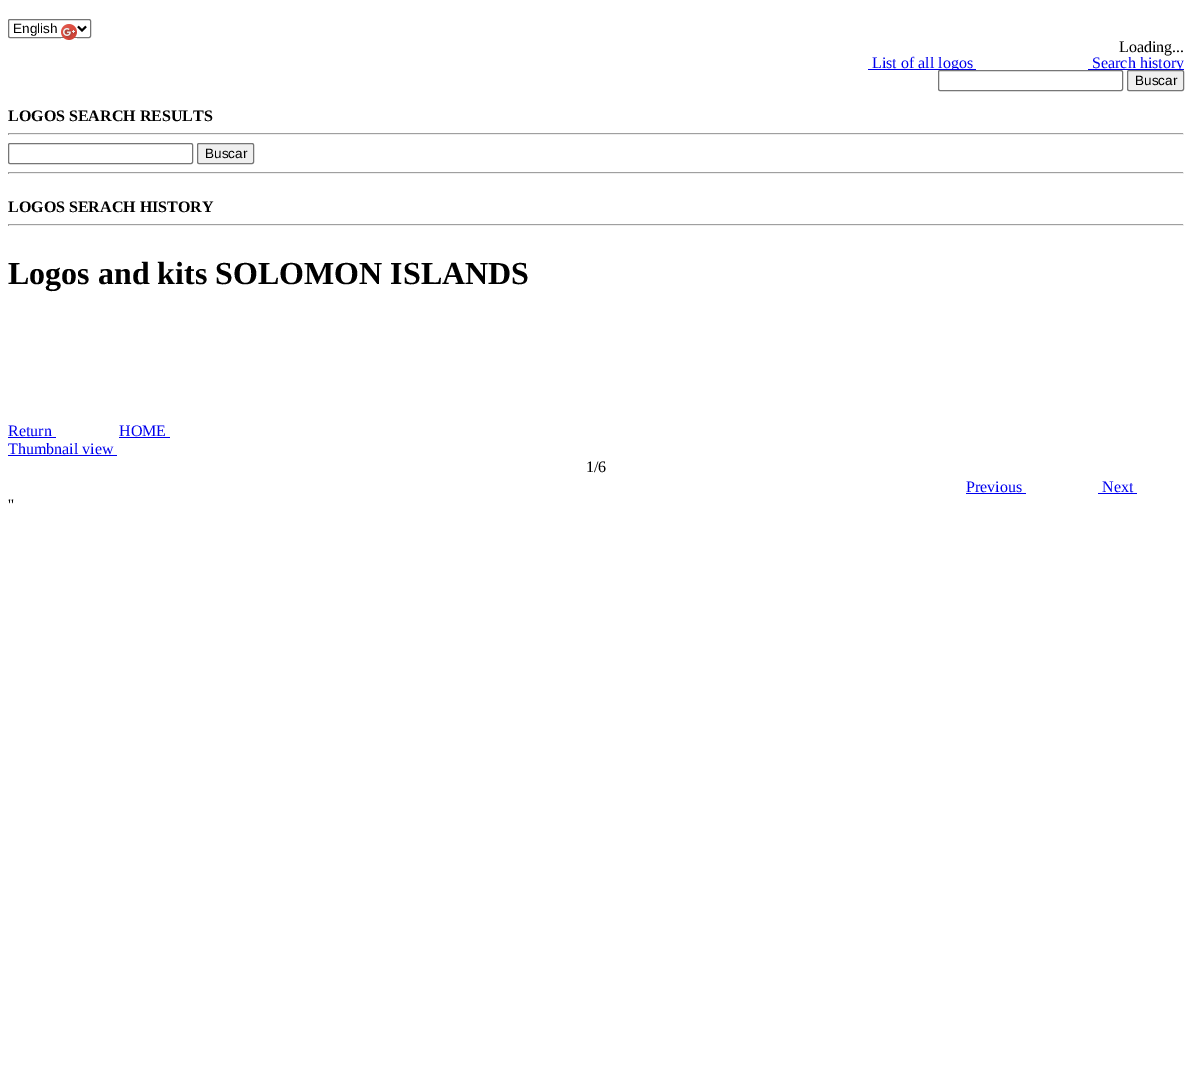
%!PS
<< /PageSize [1192 1079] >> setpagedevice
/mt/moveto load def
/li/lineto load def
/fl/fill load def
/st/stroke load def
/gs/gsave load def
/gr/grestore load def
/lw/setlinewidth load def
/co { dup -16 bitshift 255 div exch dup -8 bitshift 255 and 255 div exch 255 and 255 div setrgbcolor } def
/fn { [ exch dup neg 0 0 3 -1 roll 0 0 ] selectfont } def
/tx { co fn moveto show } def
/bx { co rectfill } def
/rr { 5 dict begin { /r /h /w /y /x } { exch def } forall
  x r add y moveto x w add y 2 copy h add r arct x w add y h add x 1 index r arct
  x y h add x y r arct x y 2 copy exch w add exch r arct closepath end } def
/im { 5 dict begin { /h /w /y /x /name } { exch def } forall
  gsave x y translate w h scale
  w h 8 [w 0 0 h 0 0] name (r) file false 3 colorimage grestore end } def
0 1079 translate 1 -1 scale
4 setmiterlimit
0 0 1192 1079 16#FFFFFF bx
16#767676 co
8.5 19.5 82 18 1.5 rr st
16#000000 co
2 lw
78 26.5 mt 82 30.5 li 86 26.5 li st
(media/1.raw) 61 24 16 16 im
868 69 108 1 16#0000EE bx
1088 69 96 1 16#0000EE bx
8 133 1176 1 16#9F9F9F bx
1183 133 1 2 16#EEEEEE bx
8 134 1176 1 16#EEEEEE bx
8 133 1 2 16#9F9F9F bx
16#767676 co
1 lw
8.5 143.5 184 20 1.5 rr st
16#EFEFEF co
197.5 143.5 56 20 1.5 rr gs fl gr
16#767676 co
st
8 172 1176 1 16#9F9F9F bx
1183 172 1 2 16#EEEEEE bx
8 173 1176 1 16#EEEEEE bx
8 172 1 2 16#9F9F9F bx
8 224 1176 1 16#9F9F9F bx
1183 224 1 2 16#EEEEEE bx
8 225 1176 1 16#EEEEEE bx
8 224 1 2 16#9F9F9F bx
8 437 48 1 16#0000EE bx
119 437 51 1 16#0000EE bx
8 455 109 1 16#0000EE bx
966 493 60 1 16#0000EE bx
1098 493 39 1 16#0000EE bx
(English) 13 33 /LiberationSans-Regular 13.5 16#000000 tx
(Loading...) 1119 52 /LiberationSerif-Regular 16 16#000000 tx
(List of all logos) 872 68 /LiberationSerif-Regular 16 16#0000EE tx
(Search history) 1092 68 /LiberationSerif-Regular 16 16#0000EE tx
16#FFFFFF co
938.5 70.5 184 20 1.5 rr gs fl gr
16#767676 co
st
16#EFEFEF co
1127.5 70.5 56 20 1.5 rr gs fl gr
16#767676 co
st
(Buscar) 1135 85 /LiberationSans-Regular 13.5 16#000000 tx
(LOGOS SEARCH RESULTS) 8 121 /LiberationSerif-Bold 16 16#000000 tx
(Buscar) 205 158 /LiberationSans-Regular 13.5 16#000000 tx
(LOGOS SERACH HISTORY) 8 212 /LiberationSerif-Bold 16 16#000000 tx
(Logos and kits SOLOMON ISLANDS) 8 284 /LiberationSerif-Bold 32 16#000000 tx
(Return) 8 436 /LiberationSerif-Regular 16 16#0000EE tx
(HOME) 119 436 /LiberationSerif-Regular 16 16#0000EE tx
(Thumbnail view) 8 454 /LiberationSerif-Regular 16 16#0000EE tx
(1/6) 586 472 /LiberationSerif-Regular 16 16#000000 tx
(Previous) 966 492 /LiberationSerif-Regular 16 16#0000EE tx
(Next) 1102 492 /LiberationSerif-Regular 16 16#0000EE tx
('') 8 510 /LiberationSerif-Regular 16 16#000000 tx
showpage
